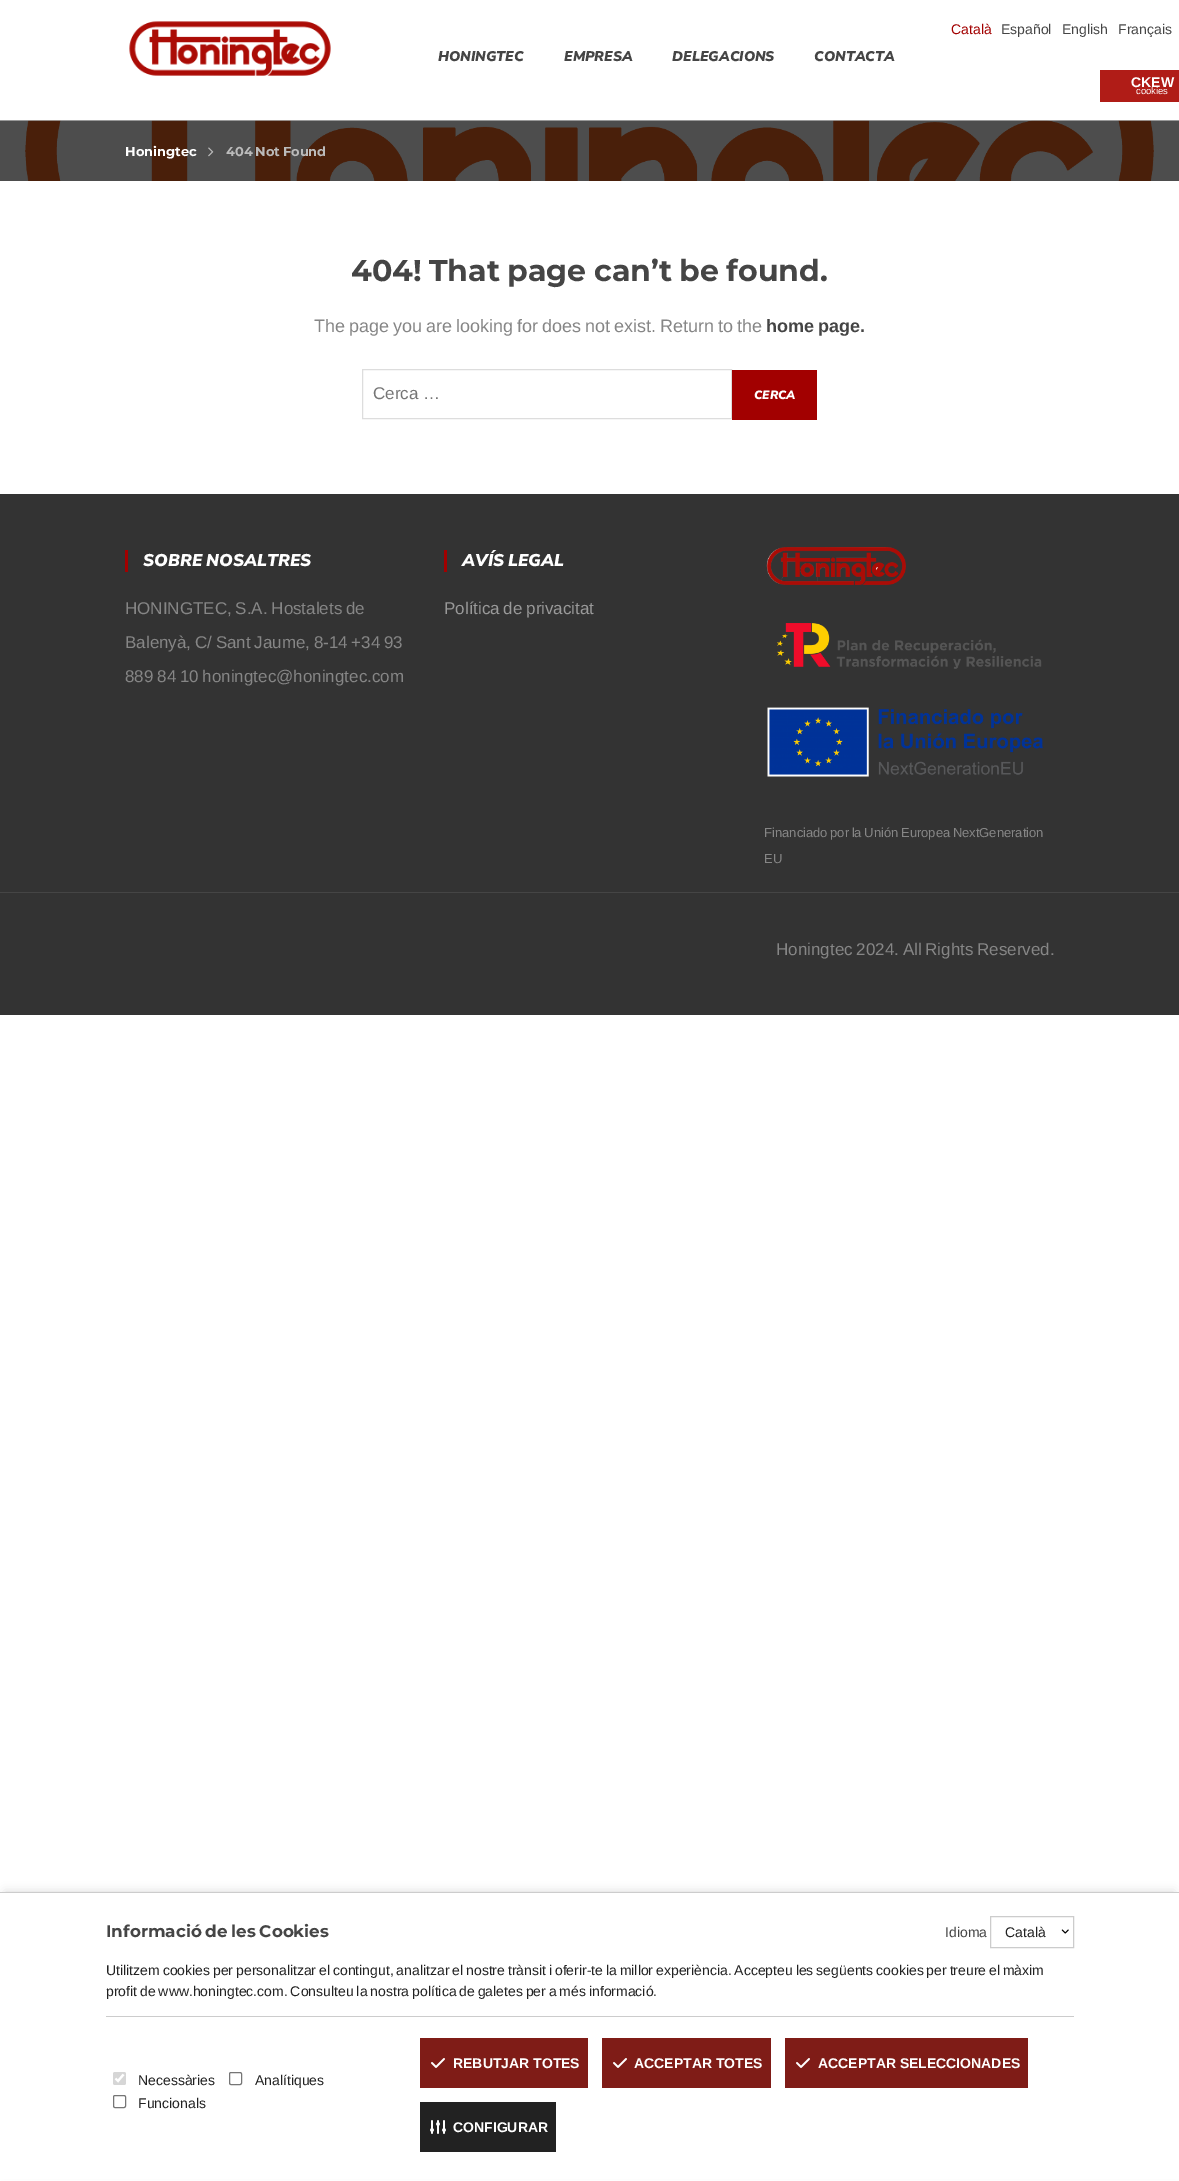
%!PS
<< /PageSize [1179 2181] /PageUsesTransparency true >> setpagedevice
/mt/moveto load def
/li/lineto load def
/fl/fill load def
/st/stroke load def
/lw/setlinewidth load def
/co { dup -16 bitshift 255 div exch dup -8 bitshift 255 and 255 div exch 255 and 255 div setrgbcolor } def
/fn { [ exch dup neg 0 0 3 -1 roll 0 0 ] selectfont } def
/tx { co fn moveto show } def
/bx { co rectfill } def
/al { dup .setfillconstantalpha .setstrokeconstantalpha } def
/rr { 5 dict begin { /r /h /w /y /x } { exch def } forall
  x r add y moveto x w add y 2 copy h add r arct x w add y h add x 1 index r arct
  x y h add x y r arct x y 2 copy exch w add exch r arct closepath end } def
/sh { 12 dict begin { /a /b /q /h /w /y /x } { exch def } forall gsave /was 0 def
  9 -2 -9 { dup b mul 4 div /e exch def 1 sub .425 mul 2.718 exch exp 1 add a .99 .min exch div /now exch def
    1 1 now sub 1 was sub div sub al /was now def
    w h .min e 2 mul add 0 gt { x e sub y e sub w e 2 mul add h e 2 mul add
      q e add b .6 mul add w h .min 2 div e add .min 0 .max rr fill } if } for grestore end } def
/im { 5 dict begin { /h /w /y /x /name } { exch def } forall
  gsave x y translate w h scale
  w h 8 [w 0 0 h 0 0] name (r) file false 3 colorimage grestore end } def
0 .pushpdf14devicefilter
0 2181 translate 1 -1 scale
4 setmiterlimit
0 0 1179 2181 16#FFFFFF bx
0 120 1179 1 16#999999 bx
0 121 1179 60 16#4D4D4D bx
(media/1.raw) 129 21 202 55 im
(media/2.raw) 25 120 1129 61 im
(media/3.raw) 208 147 6 10 im
16#DDDDDD co
362.5 369.5 369 49 rectstroke
732 370 85 50 16#A20000 bx
0 494 1179 521 16#333333 bx
125 550 3 22 16#A20000 bx
444 550 3 22 16#A20000 bx
(media/4.raw) 766 547 140 38 im
(media/5.raw) 777 623 265 46 im
(media/6.raw) 767 707 276 70 im
0 892 1179 1 16#454545 bx
1100 70 79 32 16#B01C17 bx
16#000000 co
5 1892 1169 279 0 5 .16 sh
0 1893 1179 286 16#FFFFFF bx
0 1892 1179 1 16#CCCCCC bx
(media/7.raw) 1061 1929 8 5 im
990.5 1916.5 83 31 rectstroke
106 2016 968 1 16#CCCCCC bx
16#D6D6D6 co
113 2072 13 13 2 rr fl
16#FFFFFF co
2.1 lw
115.5 2078.5 mt 118 2081 li 123.5 2074.5 li st
16#767676 co
1 lw
229.5 2072.5 12 12 1.5 rr st
113.5 2095.5 12 12 1.5 rr st
420 2038 168 50 16#7F1C17 bx
(media/8.raw) 431 2058 14 10 im
602 2038 169 50 16#7F1C17 bx
(media/8.raw) 613 2058 14 10 im
785 2038 243 50 16#7F1C17 bx
(media/8.raw) 796 2058 14 10 im
420 2102 136 50 16#222222 bx
(media/9.raw) 430 2120 16 14 im
(Català) 951 34 /LiberationSans-Regular 14 16#A20000 tx
(Español) 1001 34 /LiberationSans-Regular 14 16#454545 tx
(English) 1062 34 /LiberationSans-Regular 14 16#454545 tx
(Français) 1118 34 /LiberationSans-Regular 14 16#454545 tx
(HONINGTEC) 438 61 /NunitoSans-BlackItalic 14 16#454545 tx
(EMPRESA) 564 61 /NunitoSans-BlackItalic 14 16#454545 tx
(DELEGACIONS) 672 61 /NunitoSans-BlackItalic 14 16#454545 tx
(CONTACTA) 814 61 /NunitoSans-BlackItalic 14 16#454545 tx
(Honingtec) 125 156 /Montserrat-Bold 13 16#FFFFFF tx
16#BBBBBB co
226 156 mt -1 0 32 (404 Not Found) widthshow
/Montserrat-Bold 30 fn
16#454545 co
351 281 mt -1 0 32 (404! That page can’t be found.) widthshow
/LiberationSans-Regular 18 fn
16#868686 co
314 332 mt -1 0 32 (The page you are looking for does not exist. Return to the) widthshow
/LiberationSans-Bold 18 fn
16#454545 co
766 332 mt -1 0 32 (home page.) widthshow
(Cerca …) 373 399 /LiberationSans-Regular 17 16#757575 tx
(CERCA) 754 399 /NunitoSans-BlackItalic 12 16#FFFFFF tx
/NunitoSans-BlackItalic 17 fn
143 566 mt -1 0 32 (SOBRE NOSALTRES) widthshow
/LiberationSans-Regular 17 fn
16#868686 co
125 614 mt -1 0 32 (HONINGTEC, S.A. Hostalets de) widthshow
125 648 mt -1 0 32 (Balenyà, C/ Sant Jaume, 8-14 +34 93) widthshow
125 682 mt -1 0 32 (889 84 10 honingtec@honingtec.com) widthshow
/NunitoSans-BlackItalic 17 fn
16#FFFFFF co
462 566 mt -1 0 32 (AVÍS LEGAL) widthshow
/LiberationSans-Regular 17 fn
16#999999 co
444 614 mt -1 0 32 (Política de privacitat) widthshow
/LiberationSans-Regular 13 fn
16#868686 co
764 837 mt -1 0 32 (Financiado por la Unión Europea NextGeneration) widthshow
(EU) 764 863 /LiberationSans-Regular 13 16#868686 tx
/LiberationSans-Regular 17 fn
776 955 mt -1 0 32 (Honingtec 2024. All Rights Reserved.) widthshow
(CKEW) 1131 87 /LiberationSans-Bold 14 16#FFFFFF tx
(cookies) 1136 94 /LiberationSans-Regular 9.5 16#FFFFFF tx
/Montserrat-Bold 16.75 fn
16#454545 co
106 1937 mt -1 0 32 (Informació de les Cookies) widthshow
(Idioma) 945 1937 /LiberationSans-Regular 14 16#454545 tx
(Català) 1005 1937 /LiberationSans-Regular 14 16#222222 tx
106 1975 mt -1 0 32 (Utilitzem cookies per personalitzar el contingut, analitzar el nostre trànsit i oferir-te la millor experiència. Accepteu les següents cookies per treure el màxim) widthshow
106 1996 mt -1 0 32 (profit de www.honingtec.com. Consulteu la nostra política de galetes per a més informació.) widthshow
(Necessàries) 138 2085 /LiberationSans-Regular 14 16#222222 tx
(Analítiques) 255 2085 /LiberationSans-Regular 14 16#222222 tx
(Funcionals) 138 2108 /LiberationSans-Regular 14 16#222222 tx
(REBUTJAR TOTES) 453 2068 /LiberationSans-Bold 14 16#FFFFFF tx
(ACCEPTAR TOTES) 634 2068 /LiberationSans-Bold 14 16#FFFFFF tx
(ACCEPTAR SELECCIONADES) 818 2068 /LiberationSans-Bold 14 16#FFFFFF tx
(CONFIGURAR) 453 2132 /LiberationSans-Bold 14 16#FFFFFF tx
.poppdf14devicefilter showpage
